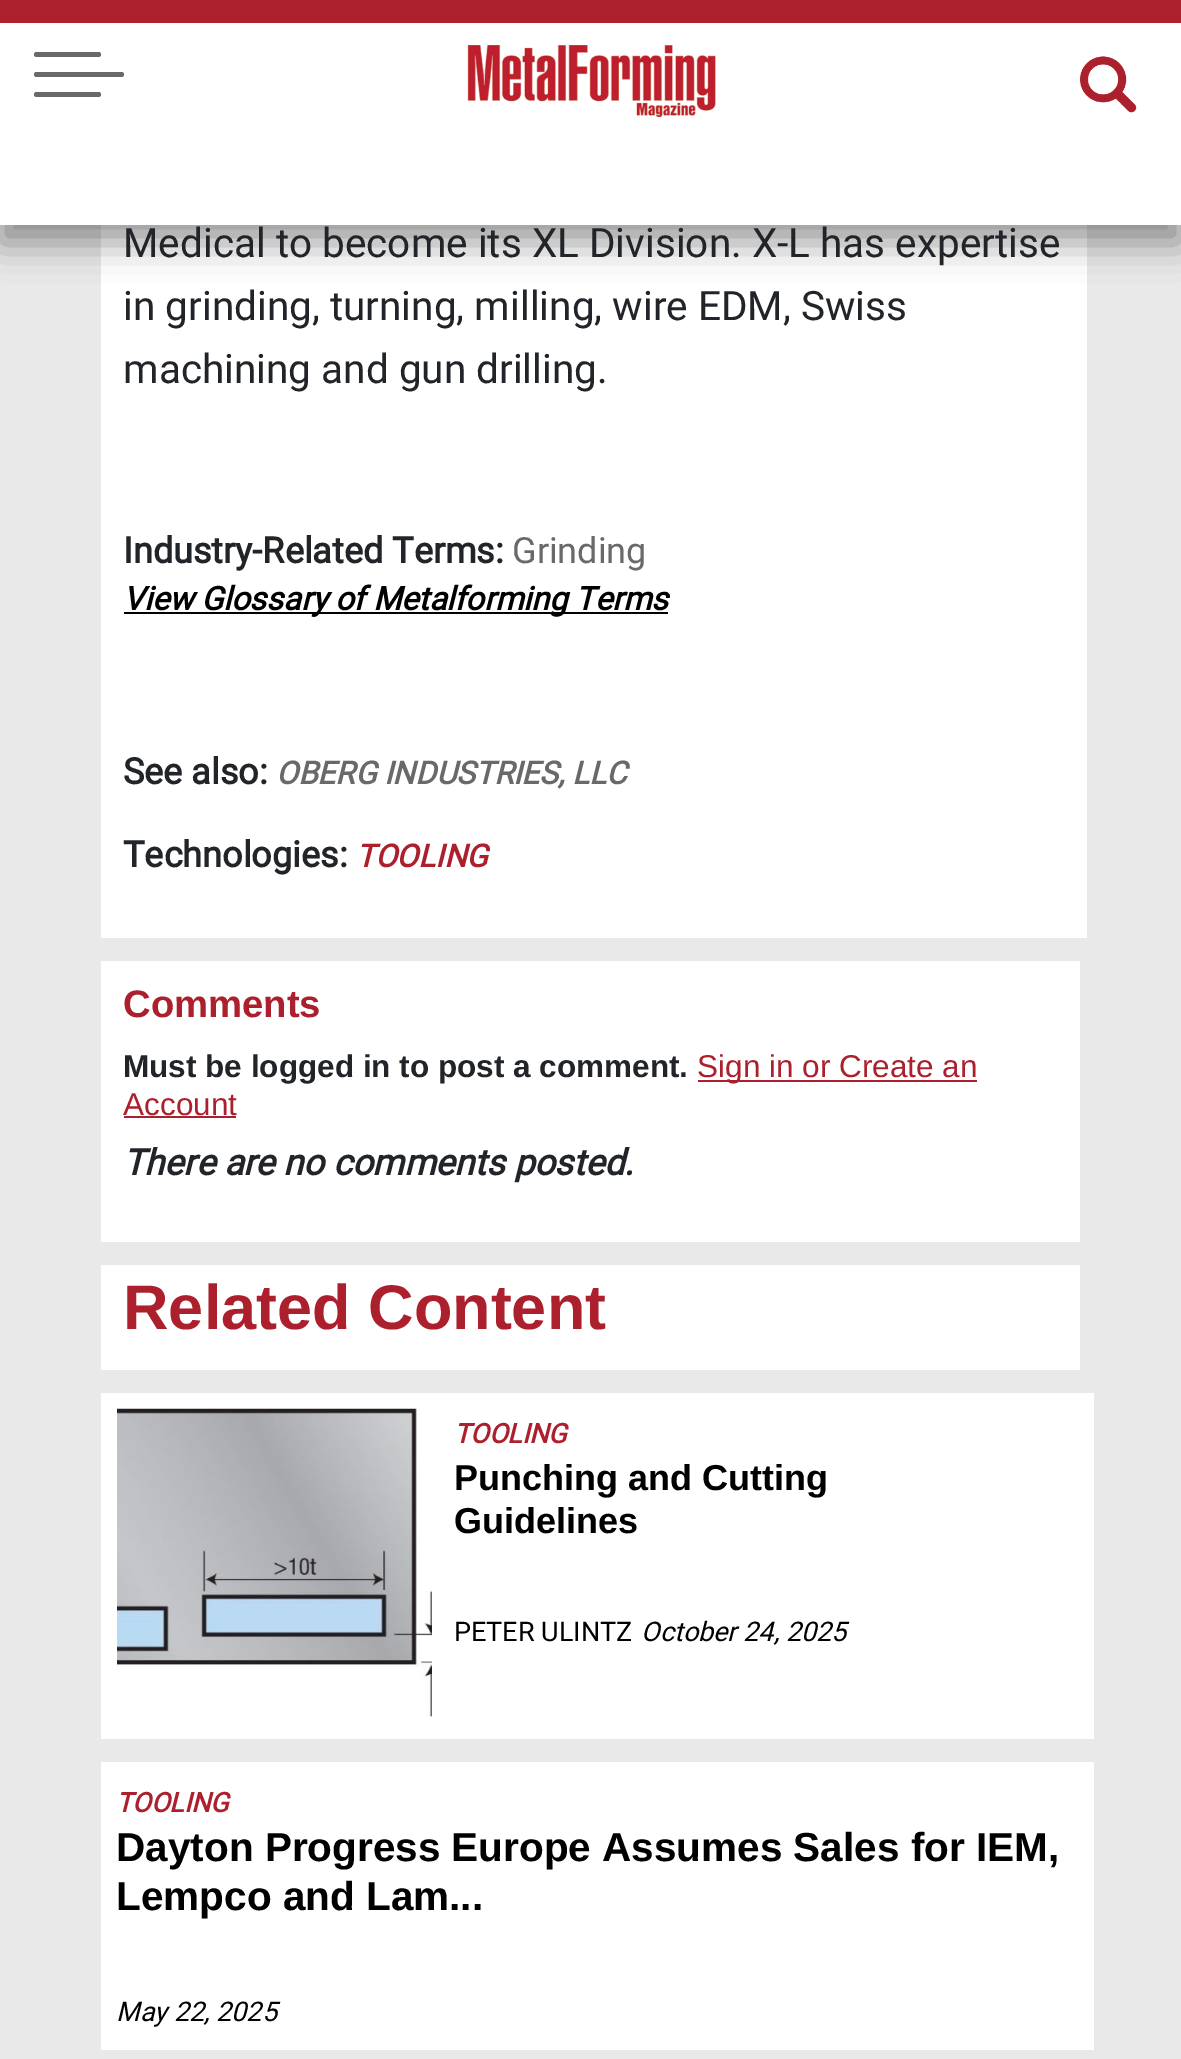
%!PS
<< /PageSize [1181 2059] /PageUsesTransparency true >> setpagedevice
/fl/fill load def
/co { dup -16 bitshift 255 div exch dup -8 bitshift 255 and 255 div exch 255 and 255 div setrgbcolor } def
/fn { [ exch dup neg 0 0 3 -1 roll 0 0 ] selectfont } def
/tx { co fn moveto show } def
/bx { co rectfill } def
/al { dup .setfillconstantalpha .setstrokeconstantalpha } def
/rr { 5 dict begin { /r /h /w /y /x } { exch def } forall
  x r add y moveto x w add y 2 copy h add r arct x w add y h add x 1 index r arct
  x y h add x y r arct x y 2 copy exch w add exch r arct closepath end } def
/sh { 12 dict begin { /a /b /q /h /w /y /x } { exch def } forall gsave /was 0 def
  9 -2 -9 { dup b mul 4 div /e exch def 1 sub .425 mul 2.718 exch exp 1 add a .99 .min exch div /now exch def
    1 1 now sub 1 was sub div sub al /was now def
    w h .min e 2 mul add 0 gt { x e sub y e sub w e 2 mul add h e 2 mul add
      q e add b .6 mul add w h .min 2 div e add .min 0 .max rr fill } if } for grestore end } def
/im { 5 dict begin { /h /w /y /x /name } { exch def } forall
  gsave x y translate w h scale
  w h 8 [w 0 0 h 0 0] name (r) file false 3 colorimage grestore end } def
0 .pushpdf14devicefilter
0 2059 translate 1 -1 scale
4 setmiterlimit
0 0 1181 2059 16#EAE9E9 bx
101 225 986 713 16#FFFFFF bx
16#000000 co
0 18 1181 225 0 18 .4 sh
0 23 1181 202 16#FFFFFF bx
0 0 1181 23 16#AC1F2D bx
16#696969 co
34 52 67 5 2.5 rr fl
34 72 90 5 2.5 rr fl
34 92 67 5 2.5 rr fl
(media/1.raw) 467 45 249 72 im
(media/2.raw) 1080 56 57 57 im
124 612 544 2 16#000000 bx
101 961 979 281 16#FFFFFF bx
698 1080 279 2 16#AC1F2D bx
124 1116 112 2 16#AC1F2D bx
101 1265 979 105 16#FFFFFF bx
101 1393 993 346 16#FFFFFF bx
(media/3.raw) 117 1408 315 309 im
101 1762 993 288 16#FFFFFF bx
(Medical to become its XL Division. X-L has expertise) 123 257 /Roboto-Regular 40.5 16#212529 tx
(in grinding, turning, milling, wire EDM, Swiss) 123 320 /Roboto-Regular 40.5 16#212529 tx
(machining and gun drilling.) 123 383 /Roboto-Regular 40.5 16#212529 tx
(Industry-Related Terms:) 123 563 /Roboto-Bold 36 16#212529 tx
(Grinding) 512 563 /Roboto-Regular 36 16#696969 tx
(View Glossary of Metalforming Terms) 123 610 /Roboto-BoldItalic 32.4 16#000000 tx
(See also:) 123 784 /Roboto-Bold 36 16#212529 tx
(OBERG INDUSTRIES, LLC) 276 784 /Roboto-BoldItalic 31.5 16#696969 tx
(Technologies:) 123 867 /Roboto-Bold 36 16#212529 tx
(TOOLING) 356 867 /Roboto-BoldItalic 31.5 16#AC1F2D tx
(Comments) 123 1017 /LiberationSans-Bold 38.25 16#AC1F2D tx
(Must be logged in to post a comment.) 123 1077 /LiberationSans-Bold 31.5 16#212529 tx
(Sign in or Create an) 697 1077 /LiberationSans-Regular 31.5 16#AC1F2D tx
(Account) 123 1115 /LiberationSans-Regular 31.5 16#AC1F2D tx
(There are no comments posted.) 123 1175 /Roboto-BoldItalic 36 16#212529 tx
(Related Content) 123 1329 /LiberationSans-Bold 63 16#AC1F2D tx
(TOOLING) 454 1443 /Roboto-BoldItalic 27 16#AC1F2D tx
(Punching and Cutting) 454 1490 /LiberationSans-Bold 36 16#000000 tx
(Guidelines) 454 1533 /LiberationSans-Bold 36 16#000000 tx
(PETER ULINTZ) 454 1641 /Roboto-Regular 27 16#000000 tx
(October 24, 2025) 641 1641 /Roboto-Italic 27 16#000000 tx
(TOOLING) 116 1812 /Roboto-BoldItalic 27 16#AC1F2D tx
(Dayton Progress Europe Assumes Sales for IEM,) 116 1861 /LiberationSans-Bold 40.5 16#000000 tx
(Lempco and Lam...) 116 1910 /LiberationSans-Bold 40.5 16#000000 tx
(May 22, 2025) 116 2021 /Roboto-Italic 27 16#000000 tx
.poppdf14devicefilter showpage
